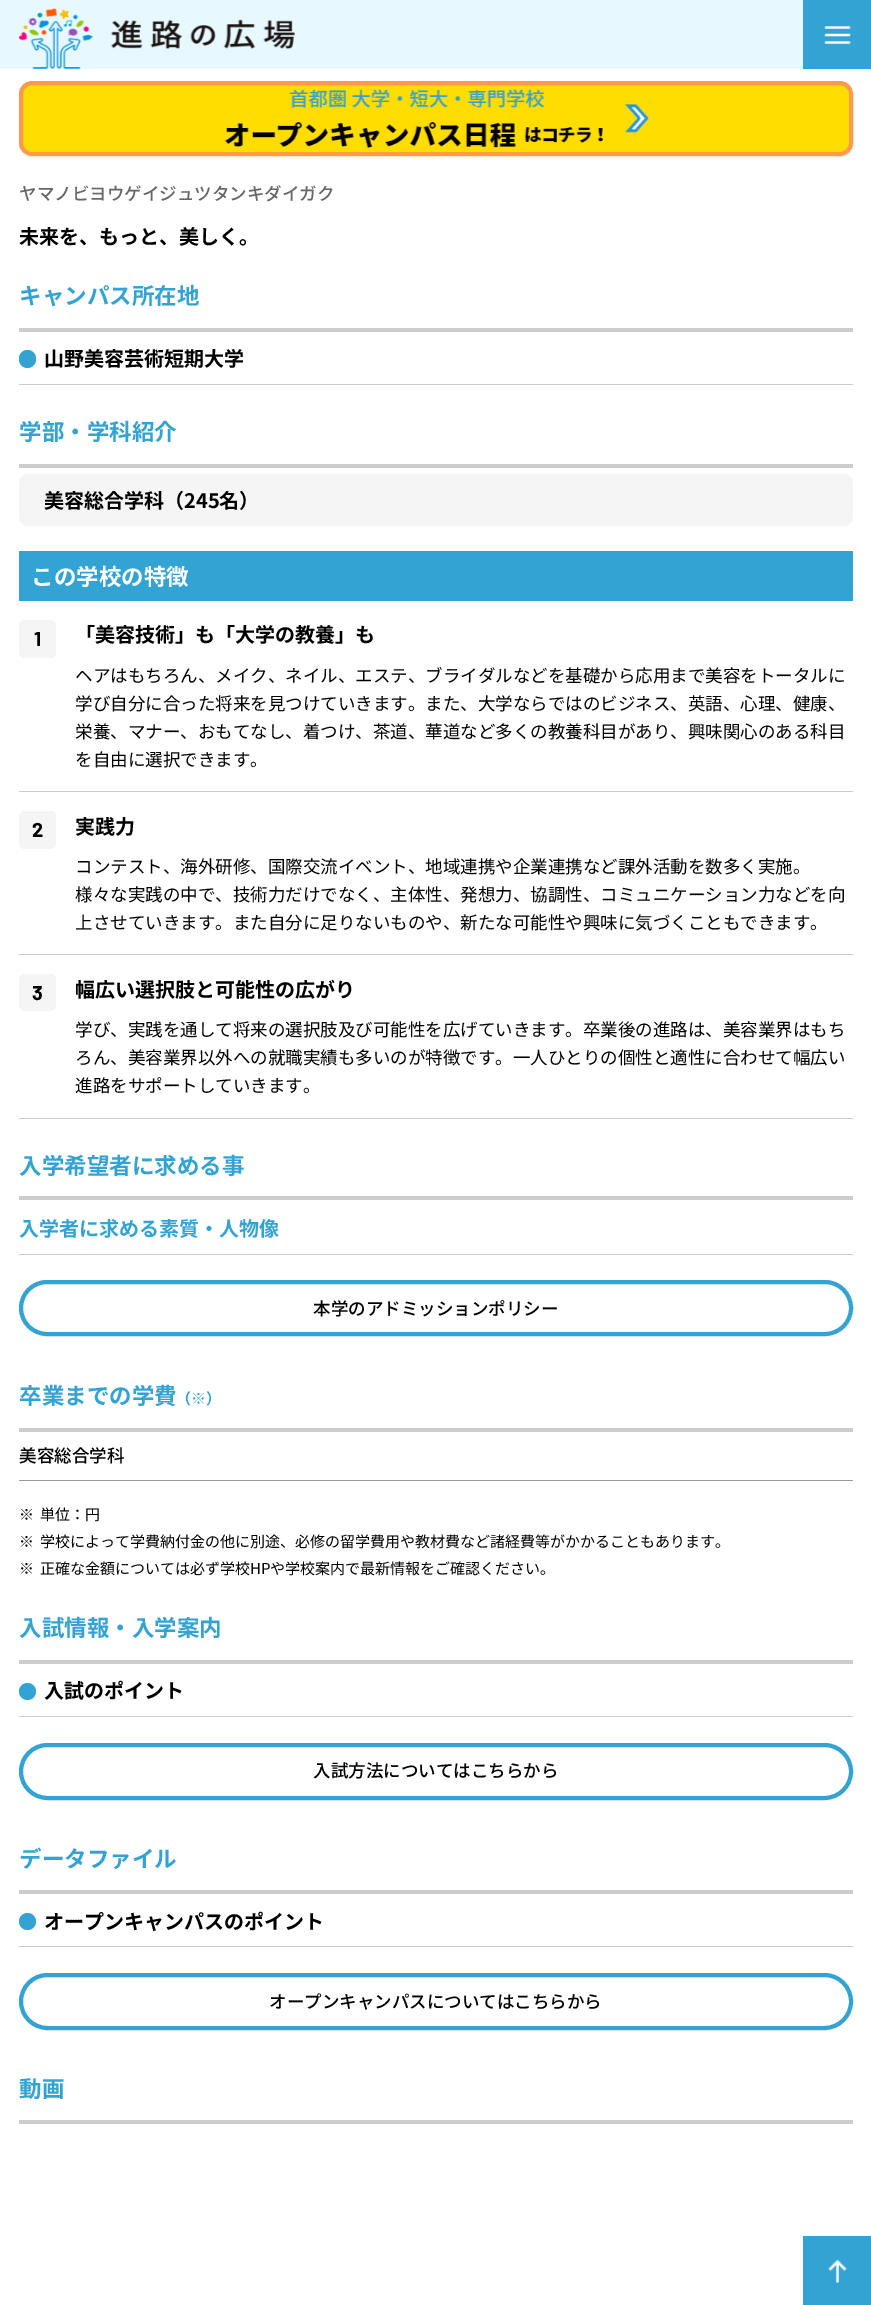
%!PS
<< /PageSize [871 2305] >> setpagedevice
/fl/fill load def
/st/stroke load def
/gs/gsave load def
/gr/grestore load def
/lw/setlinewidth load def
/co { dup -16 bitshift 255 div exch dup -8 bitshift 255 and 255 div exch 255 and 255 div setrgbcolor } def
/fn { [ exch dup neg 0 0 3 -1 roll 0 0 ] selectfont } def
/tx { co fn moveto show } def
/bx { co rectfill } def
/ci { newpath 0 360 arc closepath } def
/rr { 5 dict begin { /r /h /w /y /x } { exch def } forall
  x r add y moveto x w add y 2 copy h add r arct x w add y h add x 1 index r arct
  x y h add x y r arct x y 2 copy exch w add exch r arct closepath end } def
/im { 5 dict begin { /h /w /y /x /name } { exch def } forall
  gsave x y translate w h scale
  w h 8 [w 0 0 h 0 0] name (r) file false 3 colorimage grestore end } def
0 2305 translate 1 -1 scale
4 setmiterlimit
0 0 871 2305 16#FFFFFF bx
0 0 803 69 16#E8F8FF bx
(media/1.raw) 19 8 276 61 im
803 0 68 69 16#33A3D3 bx
(media/2.raw) 824 26 27 18 im
16#FFDD00 co
21 83 830 71 11 rr gs fl gr
16#FF9A4D co
4 lw
st
(media/3.raw) 224 89 425 59 im
19 328 834 4 16#CCCCCC bx
19 384 834 1 16#CCCCCC bx
16#33A3D3 co
19 350 17 18 8.5 rr fl
19 464 834 4 16#CCCCCC bx
16#F5F5F5 co
19 474 834 52 10 rr fl
19 551 834 50 16#33A3D3 bx
19 791 834 1 16#CCCCCC bx
16#F5F5F5 co
19 620 37 38 6 rr fl
19 954 834 1 16#CCCCCC bx
16#F5F5F5 co
19 811 37 38 6 rr fl
19 1118 834 1 16#CCCCCC bx
16#F5F5F5 co
19 974 37 37 6 rr fl
19 1196 834 4 16#CCCCCC bx
19 1254 834 1 16#CCCCCC bx
16#33A3D3 co
21 1282 830 52 26 rr st
19 1428 834 4 16#CCCCCC bx
19 1480 834 1 16#999999 bx
19 1660 834 4 16#CCCCCC bx
19 1716 834 1 16#CCCCCC bx
16#33A3D3 co
27.5 1691.5 8.5 ci fl
21 1745 830 53 26.5 rr st
19 1890 834 4 16#CCCCCC bx
19 1946 834 1 16#CCCCCC bx
16#33A3D3 co
27.5 1921.5 8.5 ci fl
21 1975 830 53 26.5 rr st
19 2120 834 4 16#CCCCCC bx
803 2236 68 69 16#33A3D3 bx
(media/4.raw) 828 2259 19 24 im
(ヤマノビヨウゲイジュツタンキダイガク) 19 200 /NotoSansJP-Medium 17.5 16#666666 tx
(未来を、もっと、美しく。) 19 244 /NotoSansJP-Bold 20 16#000000 tx
(キャンパス所在地) 19 304 /NotoSansJP-Bold 22.5 16#33A3D3 tx
(山野美容芸術短期大学) 44 366 /NotoSansJP-Bold 20 16#000000 tx
(学部・学科紹介) 19 440 /NotoSansJP-Bold 22.5 16#33A3D3 tx
(美容総合学科（245名）) 44 508 /NotoSansJP-Bold 20 16#000000 tx
(この学校の特徴) 31 585 /NotoSansJP-Bold 22.5 16#FFFFFF tx
(1) 34 646 /Barlow-Bold 20 16#000000 tx
(「美容技術」も「大学の教養」も) 75 642 /NotoSansJP-Bold 20 16#000000 tx
(ヘアはもちろん、メイク、ネイル、エステ、ブライダルなどを基礎から応用まで美容をトータルに) 75 682 /NotoSansJP-Regular 17.5 16#000000 tx
(学び自分に合った将来を見つけていきます。また、大学ならではのビジネス、英語、心理、健康、) 75 710 /NotoSansJP-Regular 17.5 16#000000 tx
(栄養、マナー、おもてなし、着つけ、茶道、華道など多くの教養科目があり、興味関心のある科目) 75 738 /NotoSansJP-Regular 17.5 16#000000 tx
(を自由に選択できます。) 75 766 /NotoSansJP-Regular 17.5 16#000000 tx
(2) 32 837 /Barlow-Bold 20 16#000000 tx
(実践力) 75 834 /NotoSansJP-Bold 20 16#000000 tx
(コンテスト、海外研修、国際交流イベント、地域連携や企業連携など課外活動を数多く実施。) 75 873 /NotoSansJP-Regular 17.5 16#000000 tx
(様々な実践の中で、技術力だけでなく、主体性、発想力、協調性、コミュニケーション力などを向) 75 901 /NotoSansJP-Regular 17.5 16#000000 tx
(上させていきます。また自分に足りないものや、新たな可能性や興味に気づくこともできます。) 75 929 /NotoSansJP-Regular 17.5 16#000000 tx
(3) 32 1000 /Barlow-Bold 20 16#000000 tx
(幅広い選択肢と可能性の広がり) 75 997 /NotoSansJP-Bold 20 16#000000 tx
(学び、実践を通して将来の選択肢及び可能性を広げていきます。卒業後の進路は、美容業界はもち) 75 1036 /NotoSansJP-Regular 17.5 16#000000 tx
(ろん、美容業界以外への就職実績も多いのが特徴です。一人ひとりの個性と適性に合わせて幅広い) 75 1064 /NotoSansJP-Regular 17.5 16#000000 tx
(進路をサポートしていきます。) 75 1092 /NotoSansJP-Regular 17.5 16#000000 tx
(入学希望者に求める事) 19 1174 /NotoSansJP-Bold 22.5 16#33A3D3 tx
(入学者に求める素質・人物像) 19 1236 /NotoSansJP-Bold 20 16#33A3D3 tx
(本学のアドミッションポリシー) 313 1315 /NotoSansJP-Medium 17.5 16#000000 tx
(卒業までの学費) 19 1404 /NotoSansJP-Bold 22.5 16#33A3D3 tx
(（※）) 176 1404 /NotoSansJP-Bold 15 16#33A3D3 tx
(美容総合学科) 19 1462 /NotoSansJP-Medium 17.5 16#000000 tx
(※) 19 1520 /NotoSansJP-Regular 15 16#000000 tx
(単位：円) 40 1520 /NotoSansJP-Regular 15 16#000000 tx
(※) 19 1547 /NotoSansJP-Regular 15 16#000000 tx
(学校によって学費納付金の他に別途、必修の留学費用や教材費など諸経費等がかかることもあります。) 40 1547 /NotoSansJP-Regular 15 16#000000 tx
(※) 19 1574 /NotoSansJP-Regular 15 16#000000 tx
(正確な金額については必ず学校HPや学校案内で最新情報をご確認ください。) 40 1574 /NotoSansJP-Regular 15 16#000000 tx
(入試情報・入学案内) 19 1636 /NotoSansJP-Bold 22.5 16#33A3D3 tx
(入試のポイント) 44 1698 /NotoSansJP-Bold 20 16#000000 tx
(入試方法についてはこちらから) 313 1777 /NotoSansJP-Medium 17.5 16#000000 tx
(データファイル) 19 1867 /NotoSansJP-Bold 22.5 16#33A3D3 tx
(オープンキャンパスのポイント) 44 1929 /NotoSansJP-Bold 20 16#000000 tx
(オープンキャンパスについてはこちらから) 269 2008 /NotoSansJP-Medium 17.5 16#000000 tx
(動画) 19 2097 /NotoSansJP-Bold 22.5 16#33A3D3 tx
showpage
